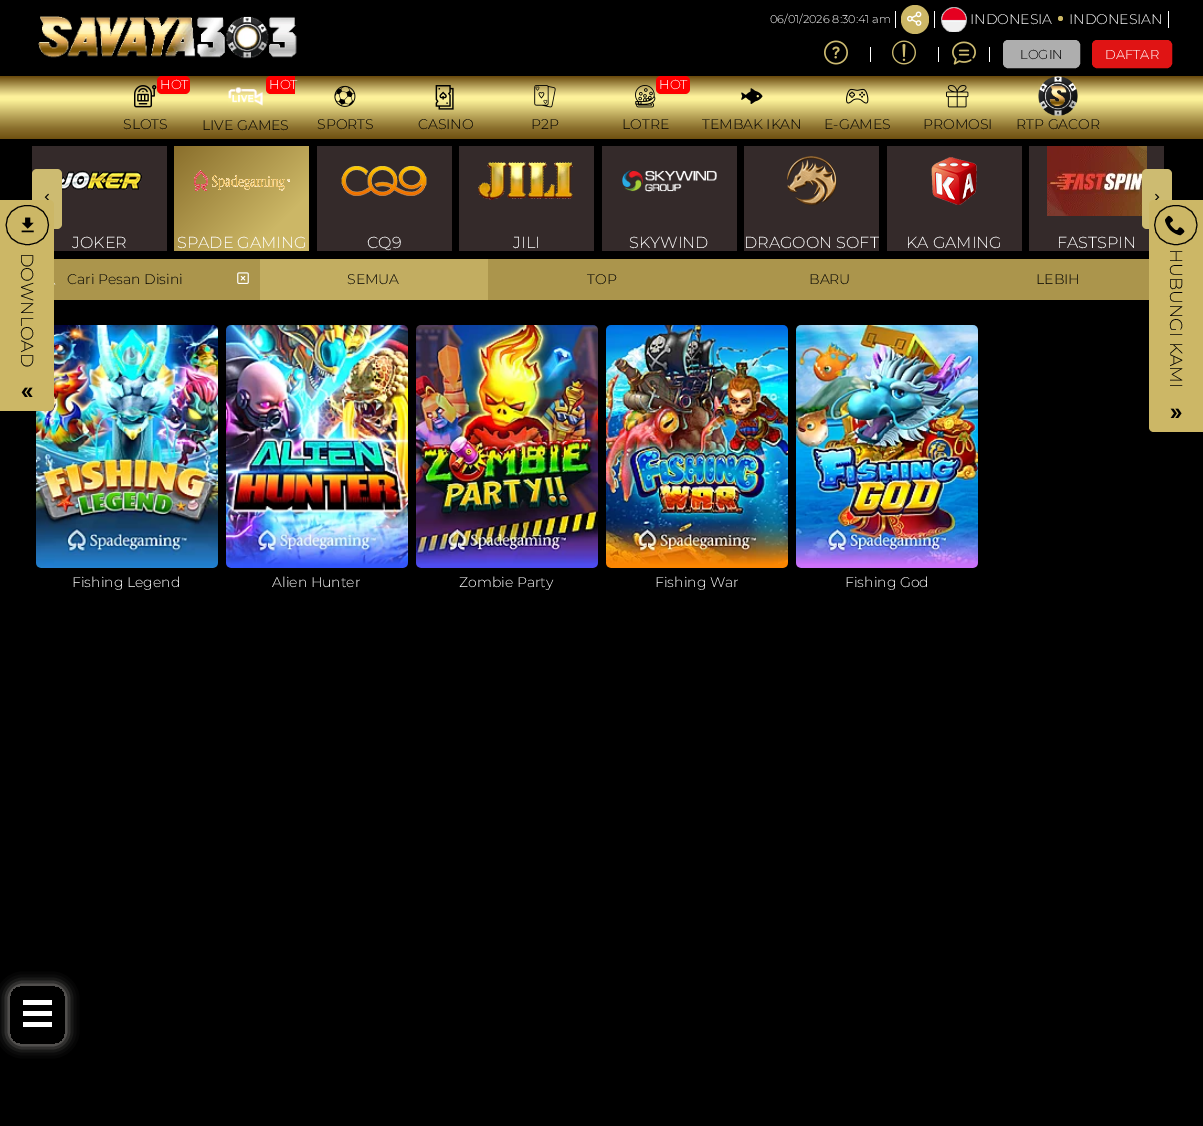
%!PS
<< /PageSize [1203 1126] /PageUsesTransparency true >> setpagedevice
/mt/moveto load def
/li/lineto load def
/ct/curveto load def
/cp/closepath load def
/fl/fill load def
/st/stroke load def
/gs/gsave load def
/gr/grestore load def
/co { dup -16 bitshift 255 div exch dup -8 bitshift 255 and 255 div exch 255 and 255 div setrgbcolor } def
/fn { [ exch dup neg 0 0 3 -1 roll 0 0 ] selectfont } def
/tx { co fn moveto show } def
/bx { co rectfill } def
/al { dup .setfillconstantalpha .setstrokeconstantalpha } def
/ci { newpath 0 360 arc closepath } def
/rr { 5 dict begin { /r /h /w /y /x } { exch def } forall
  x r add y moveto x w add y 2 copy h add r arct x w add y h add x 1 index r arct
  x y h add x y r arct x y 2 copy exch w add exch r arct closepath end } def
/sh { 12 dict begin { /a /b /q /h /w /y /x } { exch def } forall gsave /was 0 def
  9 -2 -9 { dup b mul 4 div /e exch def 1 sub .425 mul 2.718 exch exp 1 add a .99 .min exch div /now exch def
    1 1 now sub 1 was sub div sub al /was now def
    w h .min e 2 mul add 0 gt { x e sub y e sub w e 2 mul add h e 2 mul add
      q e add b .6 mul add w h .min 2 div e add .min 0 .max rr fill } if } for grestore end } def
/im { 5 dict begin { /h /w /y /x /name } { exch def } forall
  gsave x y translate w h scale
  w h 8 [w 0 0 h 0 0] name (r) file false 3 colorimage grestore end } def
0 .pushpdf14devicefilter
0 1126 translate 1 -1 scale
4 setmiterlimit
0 0 1203 1126 16#000000 bx
(media/1.raw) 38 16 259 43 im
895 11 1 17 16#FFFFFF bx
16#CCB766 co
901 5 28 29 14 rr fl
(media/2.raw) 907 11 15 15 im
934 11 1 17 16#FFFFFF bx
(media/3.raw) 941 7 26 25 im
16#CCB766 co
1060.5 18.5 2.5 ci fl
1168 11 1 17 16#FFFFFF bx
(media/4.raw) 824 40 24 25 im
870 47 1 15 16#FFFFFF bx
(media/5.raw) 892 40 24 25 im
938 47 1 15 16#FFFFFF bx
(media/6.raw) 952 41 24 24 im
989 47 1 15 16#FFFFFF bx
16#AEAEAE co
1003.5 40.5 76 27 4.5 rr gs fl gr
st
16#E01414 co
1092.5 40.5 79 27 4.5 rr gs fl gr
st
gs 0 76 mt 1203 76 li 1203 139 li 0 139 li cp clip newpath
<< /ShadingType 2 /ColorSpace /DeviceRGB /Coords [602 76 602 139] /Extend [true true] /Function << /FunctionType 3 /Domain [0 1] /Functions [<< /FunctionType 2 /Domain [0 1] /C0 [.408 .282 .043] /C1 [.804 .733 .443] /N 1 >> << /FunctionType 2 /Domain [0 1] /C0 [.804 .733 .443] /C1 [.992 .945 .608] /N 1 >> << /FunctionType 2 /Domain [0 1] /C0 [.992 .945 .608] /C1 [.988 .949 .6] /N 1 >> << /FunctionType 2 /Domain [0 1] /C0 [.988 .949 .6] /C1 [.671 .584 .298] /N 1 >> << /FunctionType 2 /Domain [0 1] /C0 [.671 .584 .298] /C1 [.541 .435 .173] /N 1 >> << /FunctionType 2 /Domain [0 1] /C0 [.541 .435 .173] /C1 [.435 .314 .063] /N 1 >>] /Bounds [.21 .32 .38 .69 .83] /Encode [0 1 0 1 0 1 0 1 0 1 0 1] >> >> shfill gr
(media/7.raw) 134 85 23 23 im
16#FF0000 co
157 76 33 18 5 rr fl
271 76 mt 295 76 li 295 94 li 271 94 li 268 94 266 92 266 89 ct 266 81 li 266 78 268 76 271 76 ct cp fl
(media/8.raw) 228 87 35 19 im
(media/9.raw) 334 85 22 22 im
(media/10.raw) 435 85 19 25 im
(media/11.raw) 534 85 22 23 im
(media/12.raw) 635 85 21 23 im
656 76 34 18 5 rr fl
(media/13.raw) 741 88 22 16 im
(media/14.raw) 846 88 23 16 im
(media/15.raw) 946 85 23 23 im
(media/16.raw) 1038 76 40 40 im
32 146 135 105 16#342A2A bx
16#CDBB71 co
32 169 30 60 5 rr fl
(media/31.raw) 36 325 182 243 im
16#CCB766 co
0 200 mt 49 200 li 52 200 54 202 54 205 ct 54 406 li 54 409 52 411 49 411 ct 0 411 li cp fl
16#000000 co
27.5 205.5 mt 55.5 205.5 55.5 244.5 27.5 244.5 ct -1 244.5 -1 205.5 27.5 205.5 ct cp st
(media/17.raw) 21 217 13 16 im
(media/18.raw) 21 387 12 10 im
(media/19.raw) 44 193 5 7 im
1029 146 135 105 16#342A2A bx
(media/28.raw) 1047 146 100 70 im
16#CDBB71 co
1142 169 30 60 5 rr fl
(media/20.raw) 1155 193 5 7 im
(media/21.raw) 62 170 80 20 im
gs 174 146 mt 309 146 li 309 251 li 174 251 li cp clip newpath
<< /ShadingType 2 /ColorSpace /DeviceRGB /Coords [182 139 302 259] /Extend [true true] /Function << /FunctionType 3 /Domain [0 1] /Functions [<< /FunctionType 2 /Domain [0 1] /C0 [.541 .435 .173] /C1 [.8 .718 .4] /N 1 >> << /FunctionType 2 /Domain [0 1] /C0 [.8 .718 .4] /C1 [.8 .718 .4] /N 1 >>] /Bounds [.76] /Encode [0 1 0 1] >> >> shfill gr
(media/22.raw) 194 170 96 21 im
317 146 135 105 16#342A2A bx
(media/23.raw) 341 166 86 30 im
459 146 135 105 16#342A2A bx
(media/24.raw) 478 162 95 38 im
602 146 135 105 16#342A2A bx
(media/25.raw) 622 170 95 22 im
744 146 135 105 16#342A2A bx
(media/26.raw) 787 156 50 50 im
887 146 135 105 16#342A2A bx
(media/27.raw) 931 157 46 48 im
54 259 1095 41 16#AB954C bx
(media/29.raw) 54 282 2 3 im
(media/30.raw) 237 272 12 12 im
260 259 228 41 16#C2AD61 bx
(media/32.raw) 226 325 182 243 im
(media/33.raw) 416 325 182 243 im
(media/34.raw) 606 325 182 243 im
(media/35.raw) 796 325 182 243 im
16#CCB766 co
1154 200 mt 1203 200 li 1203 432 li 1154 432 li 1151 432 1149 430 1149 427 ct 1149 205 li 1149 202 1151 200 1154 200 ct cp fl
16#000000 co
1176 205.5 mt 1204 205.5 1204 244.5 1176 244.5 ct 1147.5 244.5 1147.5 205.5 1176 205.5 ct cp st
(media/36.raw) 1165 215 20 21 im
(media/37.raw) 1170 408 12 10 im
gs
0 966 mt 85 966 li 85 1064 li 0 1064 li cp 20 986 mt 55 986 li 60.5 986 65 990.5 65 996 ct 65 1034 li 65 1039.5 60.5 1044 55 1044 ct 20 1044 li 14.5 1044 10 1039.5 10 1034 ct 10 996 li 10 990.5 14.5 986 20 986 ct cp eoclip newpath
16#E9E4DE co
9 985 57 60 11 6 .7 sh
gr
23 1000 29 5 16#FFFFFF bx
23 1011 29 5 16#FFFFFF bx
23 1022 29 5 16#FFFFFF bx
(06/01/2026 8:30:41 am) 770 23 /Montserrat-Light 11.25 16#FFFFFF tx
(INDONESIA) 970 24 /Montserrat-Light 14 16#FFFFFF tx
(INDONESIAN) 1069 24 /Montserrat-Light 14 16#FFFFFF tx
(LOGIN) 1020 59 /Montserrat-Light 13 16#000000 tx
(DAFTAR) 1105 59 /Montserrat-Light 13 16#FFFFFF tx
(HOT) 160 89 /Montserrat-Light 13 16#FFFFFF tx
(SLOTS) 123 129 /Montserrat-Light 14 16#000000 tx
(HOT) 269 89 /Montserrat-Light 13 16#FFFFFF tx
(LIVE GAMES) 202 130 /Montserrat-Light 14 16#000000 tx
(SPORTS) 317 129 /Montserrat-Light 14 16#000000 tx
(CASINO) 418 129 /Montserrat-Light 14 16#000000 tx
(P2P) 531 129 /Montserrat-Light 14 16#000000 tx
(HOT) 659 89 /Montserrat-Light 13 16#FFFFFF tx
(LOTRE) 622 129 /Montserrat-Light 14 16#000000 tx
(TEMBAK IKAN) 702 129 /Montserrat-Light 14 16#000000 tx
(E-GAMES) 824 129 /Montserrat-Light 14 16#000000 tx
(PROMOSI) 923 129 /Montserrat-Light 14 16#000000 tx
(RTP GACOR) 1016 129 /Montserrat-Light 14 16#000000 tx
/Montserrat-Light 17.5 fn
gs 21 253 translate 90 rotate 0 0 mt (DOWNLOAD) show gr
(JOKER) 72 248 /Montserrat-Light 16 16#FFFFFF tx
(SPADE GAMING) 177 248 /Montserrat-Light 16 16#FFFFFF tx
(CQ9) 367 248 /Montserrat-Light 16 16#FFFFFF tx
(JILI) 513 248 /Montserrat-Light 16 16#FFFFFF tx
(SKYWIND) 629 248 /Montserrat-Light 16 16#FFFFFF tx
(DRAGOON SOFT) 744 248 /Montserrat-Light 16 16#FFFFFF tx
(KA GAMING) 906 248 /Montserrat-Light 16 16#FFFFFF tx
(FASTSPIN) 1057 248 /Montserrat-Light 16 16#FFFFFF tx
(Cari Pesan Disini) 67 284 /Montserrat-Light 14 16#000000 tx
(SEMUA) 347 284 /Montserrat-Light 14 16#000000 tx
(TOP) 587 284 /Montserrat-Light 14 16#000000 tx
(BARU) 809 284 /Montserrat-Light 14 16#000000 tx
(LEBIH) 1036 284 /Montserrat-Light 14 16#000000 tx
(Fishing Legend) 72 587 /Montserrat-Light 14 16#FFFFFF tx
(Alien Hunter) 272 587 /Montserrat-Light 14 16#FFFFFF tx
(Zombie Party) 459 587 /Montserrat-Light 14 16#FFFFFF tx
(Fishing War) 655 587 /Montserrat-Light 14 16#FFFFFF tx
(Fishing God) 845 587 /Montserrat-Light 14 16#FFFFFF tx
/Montserrat-Light 17.5 fn
16#000000 co
gs 1170 249 translate 90 rotate 0 0 mt (HUBUNGI KAMI) show gr
.poppdf14devicefilter showpage
